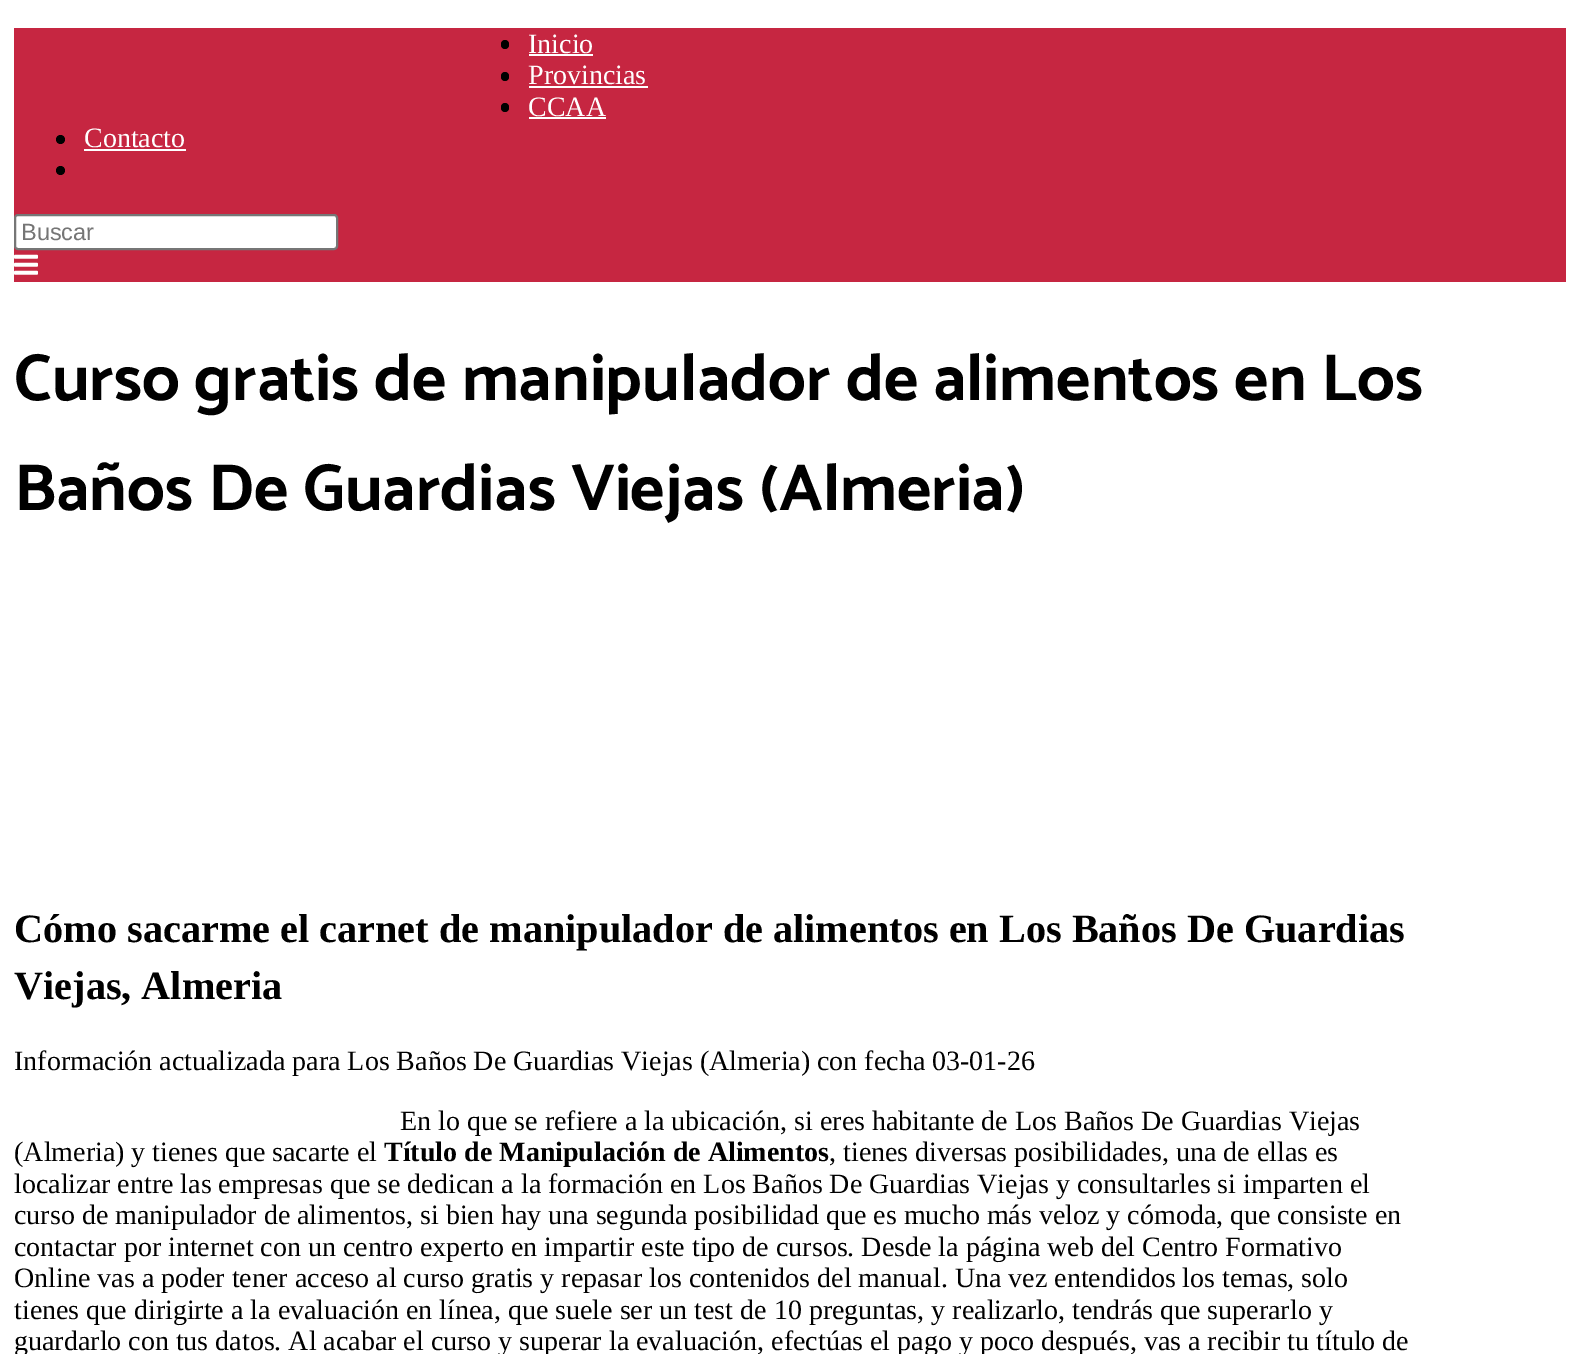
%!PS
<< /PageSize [1580 1354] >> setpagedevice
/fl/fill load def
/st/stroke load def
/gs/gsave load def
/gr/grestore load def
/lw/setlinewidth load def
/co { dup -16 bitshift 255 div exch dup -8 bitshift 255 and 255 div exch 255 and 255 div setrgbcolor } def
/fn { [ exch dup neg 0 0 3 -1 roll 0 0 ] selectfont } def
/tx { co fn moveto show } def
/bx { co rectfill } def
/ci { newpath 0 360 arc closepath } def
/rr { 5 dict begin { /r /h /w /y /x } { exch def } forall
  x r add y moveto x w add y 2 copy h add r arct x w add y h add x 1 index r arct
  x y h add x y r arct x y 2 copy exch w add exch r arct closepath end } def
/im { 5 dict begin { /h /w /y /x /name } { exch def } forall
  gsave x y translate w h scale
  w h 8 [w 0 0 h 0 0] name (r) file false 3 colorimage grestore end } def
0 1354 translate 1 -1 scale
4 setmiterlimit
0 0 1580 1354 16#FFFFFF bx
14 28 1552 254 16#C62641 bx
16#000000 co
501 40 8 9 4 rr fl
529 54 64 2 16#FFFFFF bx
16#000000 co
501 72 8 9 4 rr fl
529 86 119 2 16#FFFFFF bx
16#000000 co
501 103 8 9 4 rr fl
529 117 77 2 16#FFFFFF bx
16#000000 co
60.5 139.5 4.5 ci fl
84 149 102 2 16#FFFFFF bx
16#000000 co
60.5 170.5 4.5 ci fl
16#FFFFFF co
15 215 322 34 3 rr gs fl gr
16#767676 co
2 lw
st
(media/1.raw) 14 254 24 21 im
(Inicio) 528 53 /LiberationSerif-Regular 28 16#FFFFFF tx
(Provincias) 528 84 /LiberationSerif-Regular 28 16#FFFFFF tx
(CCAA) 528 116 /LiberationSerif-Regular 28 16#FFFFFF tx
(Contacto) 84 147 /LiberationSerif-Regular 28 16#FFFFFF tx
(Buscar) 21 240 /LiberationSans-Regular 23.5 16#757575 tx
(Curso gratis de manipulador de alimentos en Los) 14 400 /Catamaran-Bold 66.5 16#000000 tx
(Baños De Guardias Viejas \(Almeria\)) 14 510 /Catamaran-Bold 66.5 16#000000 tx
(Cómo sacarme el carnet de manipulador de alimentos en Los Baños De Guardias) 14 942 /LiberationSerif-Bold 40.25 16#000000 tx
(Viejas, Almeria) 14 999 /LiberationSerif-Bold 40.25 16#000000 tx
(Información actualizada para Los Baños De Guardias Viejas \(Almeria\) con fecha 03-01-26) 14 1070 /LiberationSerif-Regular 28 16#000000 tx
(En lo que se refiere a la ubicación, si eres habitante de Los Baños De Guardias Viejas) 400 1130 /LiberationSerif-Regular 28 16#000000 tx
(\(Almeria\) y tienes que sacarte el) 14 1161 /LiberationSerif-Regular 28 16#000000 tx
(Título de Manipulación de Alimentos) 384 1161 /LiberationSerif-Bold 28 16#000000 tx
(, tienes diversas posibilidades, una de ellas es) 829 1161 /LiberationSerif-Regular 28 16#000000 tx
(localizar entre las empresas que se dedican a la formación en Los Baños De Guardias Viejas y consultarles si imparten el) 14 1193 /LiberationSerif-Regular 28 16#000000 tx
(curso de manipulador de alimentos, si bien hay una segunda posibilidad que es mucho más veloz y cómoda, que consiste en) 14 1224 /LiberationSerif-Regular 28 16#000000 tx
(contactar por internet con un centro experto en impartir este tipo de cursos. Desde la página web del Centro Formativo) 14 1256 /LiberationSerif-Regular 28 16#000000 tx
(Online vas a poder tener acceso al curso gratis y repasar los contenidos del manual. Una vez entendidos los temas, solo) 14 1287 /LiberationSerif-Regular 28 16#000000 tx
(tienes que dirigirte a la evaluación en línea, que suele ser un test de 10 preguntas, y realizarlo, tendrás que superarlo y) 14 1319 /LiberationSerif-Regular 28 16#000000 tx
(guardarlo con tus datos. Al acabar el curso y superar la evaluación, efectúas el pago y poco después, vas a recibir tu título de) 14 1350 /LiberationSerif-Regular 28 16#000000 tx
showpage
